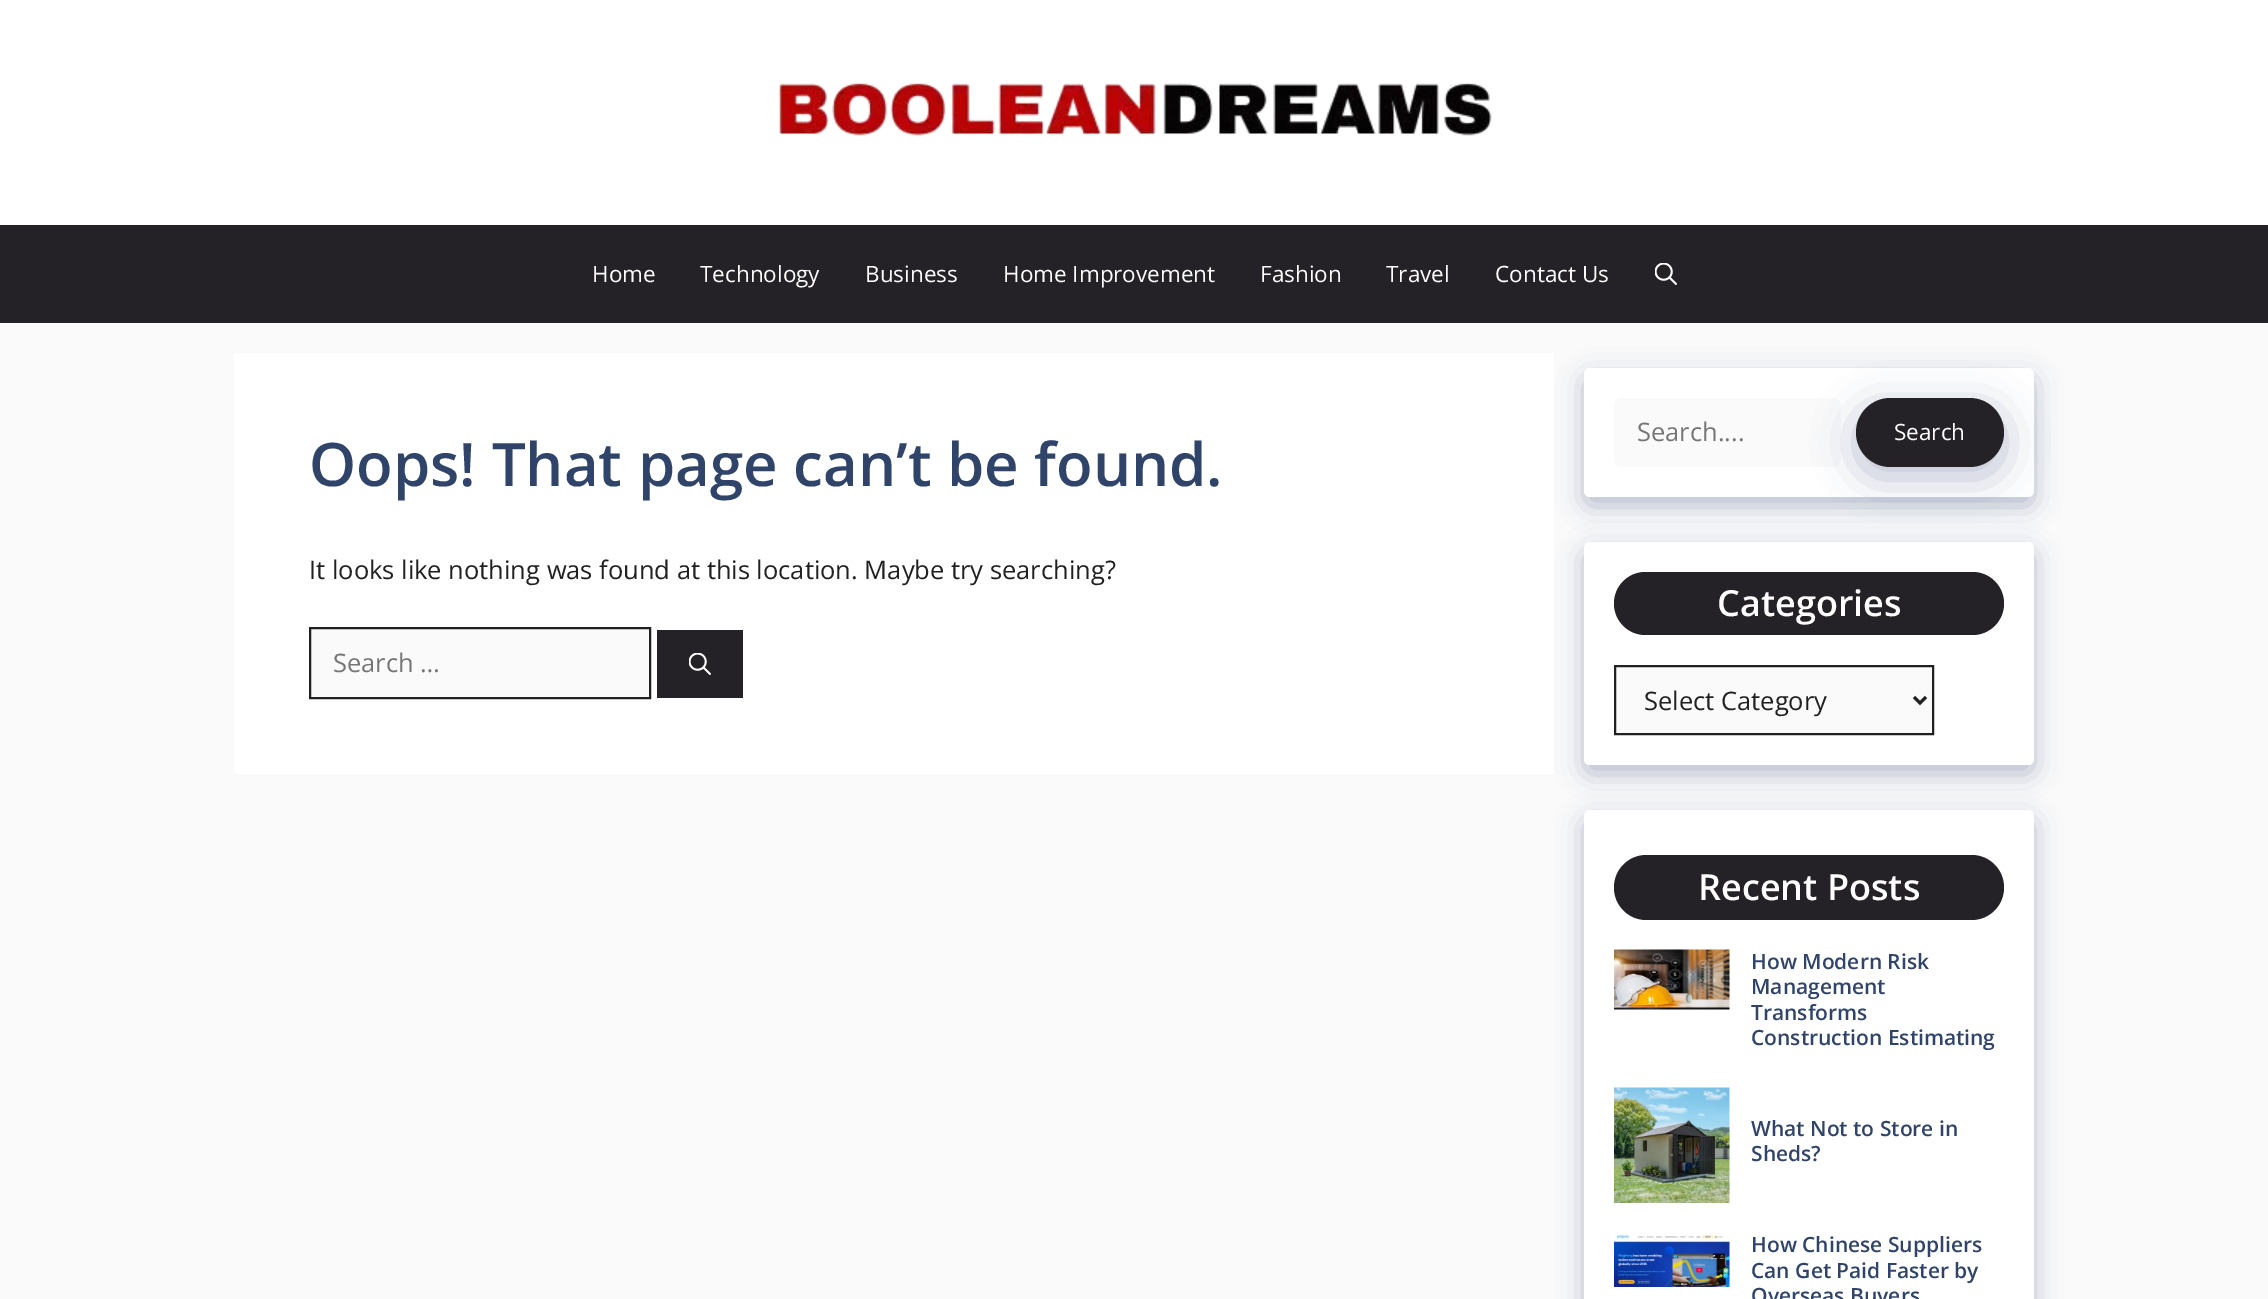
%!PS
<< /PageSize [2268 1299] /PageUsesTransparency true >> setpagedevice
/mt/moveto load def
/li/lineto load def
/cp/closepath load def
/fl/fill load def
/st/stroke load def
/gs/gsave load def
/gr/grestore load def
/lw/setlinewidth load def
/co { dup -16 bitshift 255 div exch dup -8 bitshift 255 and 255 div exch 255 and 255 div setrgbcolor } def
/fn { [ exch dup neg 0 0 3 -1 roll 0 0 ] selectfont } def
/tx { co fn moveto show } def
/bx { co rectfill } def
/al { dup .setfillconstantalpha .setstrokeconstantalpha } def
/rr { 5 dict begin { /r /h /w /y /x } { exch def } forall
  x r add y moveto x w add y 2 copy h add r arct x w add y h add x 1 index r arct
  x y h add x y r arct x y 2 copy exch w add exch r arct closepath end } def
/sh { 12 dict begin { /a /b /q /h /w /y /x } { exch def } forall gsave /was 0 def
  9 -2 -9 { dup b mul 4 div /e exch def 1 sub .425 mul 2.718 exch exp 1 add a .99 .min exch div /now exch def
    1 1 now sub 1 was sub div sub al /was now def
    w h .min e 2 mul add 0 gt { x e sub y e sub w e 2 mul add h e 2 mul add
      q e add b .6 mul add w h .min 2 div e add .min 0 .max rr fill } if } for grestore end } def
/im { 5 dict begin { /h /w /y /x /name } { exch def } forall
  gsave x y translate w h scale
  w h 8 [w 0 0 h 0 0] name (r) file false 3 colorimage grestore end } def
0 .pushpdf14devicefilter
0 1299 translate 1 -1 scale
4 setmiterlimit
0 0 2268 1299 16#FAFAFA bx
0 0 2268 225 16#FFFFFF bx
(media/1.raw) 778 82 714 54 im
0 225 2268 98 16#242226 bx
(media/2.raw) 1655 263 22 22 im
234 353 1320 421 16#FFFFFF bx
16#FAFAFA co
310 628 mt 650 628 li 650 698 li 310 698 li cp gs fl gr
16#212121 co
2 lw
st
657 630 86 68 16#242226 bx
(media/2.raw) 689 653 22 22 im
16#172B63 co
1584 377 450 129 6 13.5 .3 sh
16#FFFFFF co
1584 368 450 129 6 rr fl
16#FAFAFA co
1614 398 227 69 8 rr fl
16#172B63 co
1856 408 148 69 34.5 21 .3 sh
16#242226 co
1856 398 148 69 34.5 rr fl
16#172B63 co
1584 551 450 223 6 13.5 .3 sh
16#FFFFFF co
1584 542 450 223 6 rr fl
16#242226 co
1614 572 390 63 31.5 rr fl
16#FAFAFA co
1615 666 mt 1933 666 li 1933 734 li 1615 734 li cp gs fl gr
16#212121 co
st
3 lw
1914 697 mt 1920 703 li 1926 697 li st
16#172B63 co
1584 819 450 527 6 13.5 .3 sh
16#FFFFFF co
1584 810 450 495 6 rr fl
16#242226 co
1614 855 390 65 32.5 rr fl
(media/3.raw) 1614 949 116 61 im
(media/4.raw) 1614 1087 116 116 im
(media/5.raw) 1614 1233 116 54 im
(Home) 592 282 /OpenSans-Regular 22.5 16#FFFFFF tx
(Technology) 700 282 /OpenSans-Regular 22.5 16#FFFFFF tx
(Business) 865 282 /OpenSans-Regular 22.5 16#FFFFFF tx
(Home Improvement) 1003 282 /OpenSans-Regular 22.5 16#FFFFFF tx
(Fashion) 1260 282 /OpenSans-Regular 22.5 16#FFFFFF tx
(Travel) 1386 282 /OpenSans-Regular 22.5 16#FFFFFF tx
(Contact Us) 1495 282 /OpenSans-Regular 22.5 16#FFFFFF tx
(Oops! That page can’t be found.) 309 486 /OpenSans-SemiBold 60 16#2F4468 tx
(It looks like nothing was found at this location. Maybe try searching?) 309 579 /OpenSans-Regular 25.5 16#212121 tx
(Search …) 333 672 /OpenSans-Regular 25.5 16#757575 tx
(Search....) 1637 441 /OpenSans-Regular 25.5 16#757575 tx
(Search) 1894 440 /OpenSans-Regular 22.5 16#FFFFFF tx
(Categories) 1717 616 /OpenSans-SemiBold 36 16#FFFFFF tx
(Select Category) 1644 710 /OpenSans-Regular 25.5 16#212121 tx
(Recent Posts) 1698 900 /OpenSans-SemiBold 36 16#FFFFFF tx
(How Modern Risk) 1751 969 /OpenSans-SemiBold 21 16#2F4468 tx
(Management) 1751 994 /OpenSans-SemiBold 21 16#2F4468 tx
(Transforms) 1751 1020 /OpenSans-SemiBold 21 16#2F4468 tx
(Construction Estimating) 1751 1045 /OpenSans-SemiBold 21 16#2F4468 tx
(What Not to Store in) 1751 1136 /OpenSans-SemiBold 21 16#2F4468 tx
(Sheds?) 1751 1161 /OpenSans-SemiBold 21 16#2F4468 tx
(How Chinese Suppliers) 1751 1252 /OpenSans-SemiBold 21 16#2F4468 tx
(Can Get Paid Faster by) 1751 1278 /OpenSans-SemiBold 21 16#2F4468 tx
(Overseas Buyers) 1751 1303 /OpenSans-SemiBold 21 16#2F4468 tx
.poppdf14devicefilter showpage
